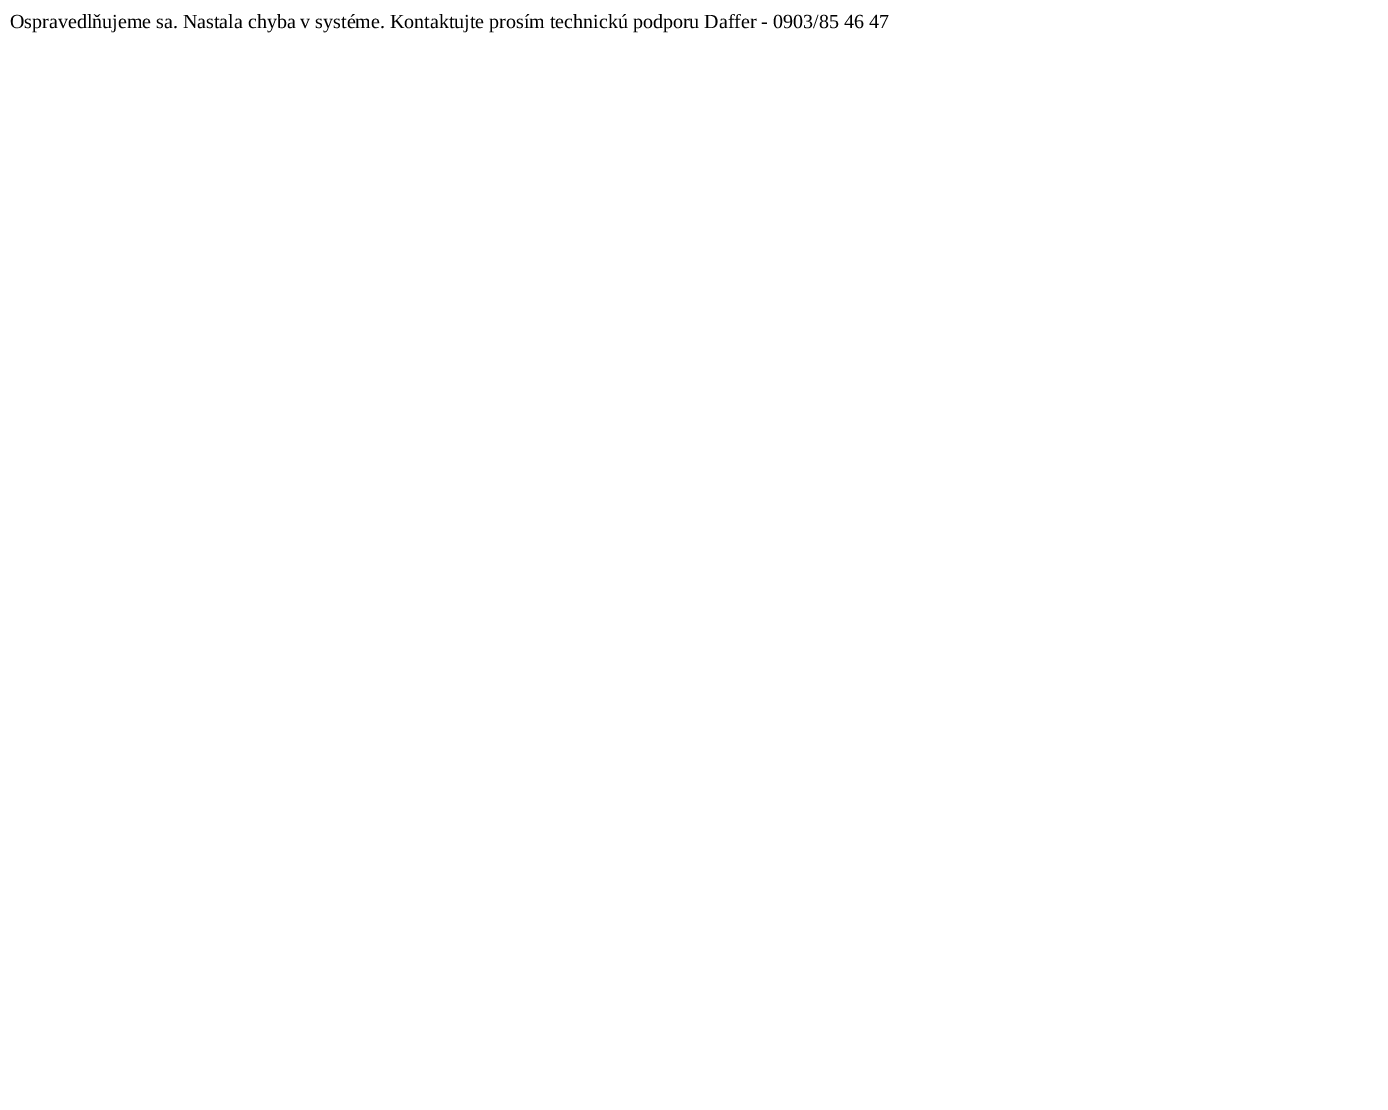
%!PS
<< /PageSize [1388 1110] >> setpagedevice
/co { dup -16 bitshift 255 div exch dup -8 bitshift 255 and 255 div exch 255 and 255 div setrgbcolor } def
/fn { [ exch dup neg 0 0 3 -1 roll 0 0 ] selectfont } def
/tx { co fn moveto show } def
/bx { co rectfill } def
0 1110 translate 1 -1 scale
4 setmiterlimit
0 0 1388 1110 16#FFFFFF bx
(Ospravedlňujeme sa. Nastala chyba v systéme. Kontaktujte prosím technickú podporu Daffer - 0903/85 46 47) 10 28 /LiberationSerif-Regular 20 16#000000 tx
showpage
